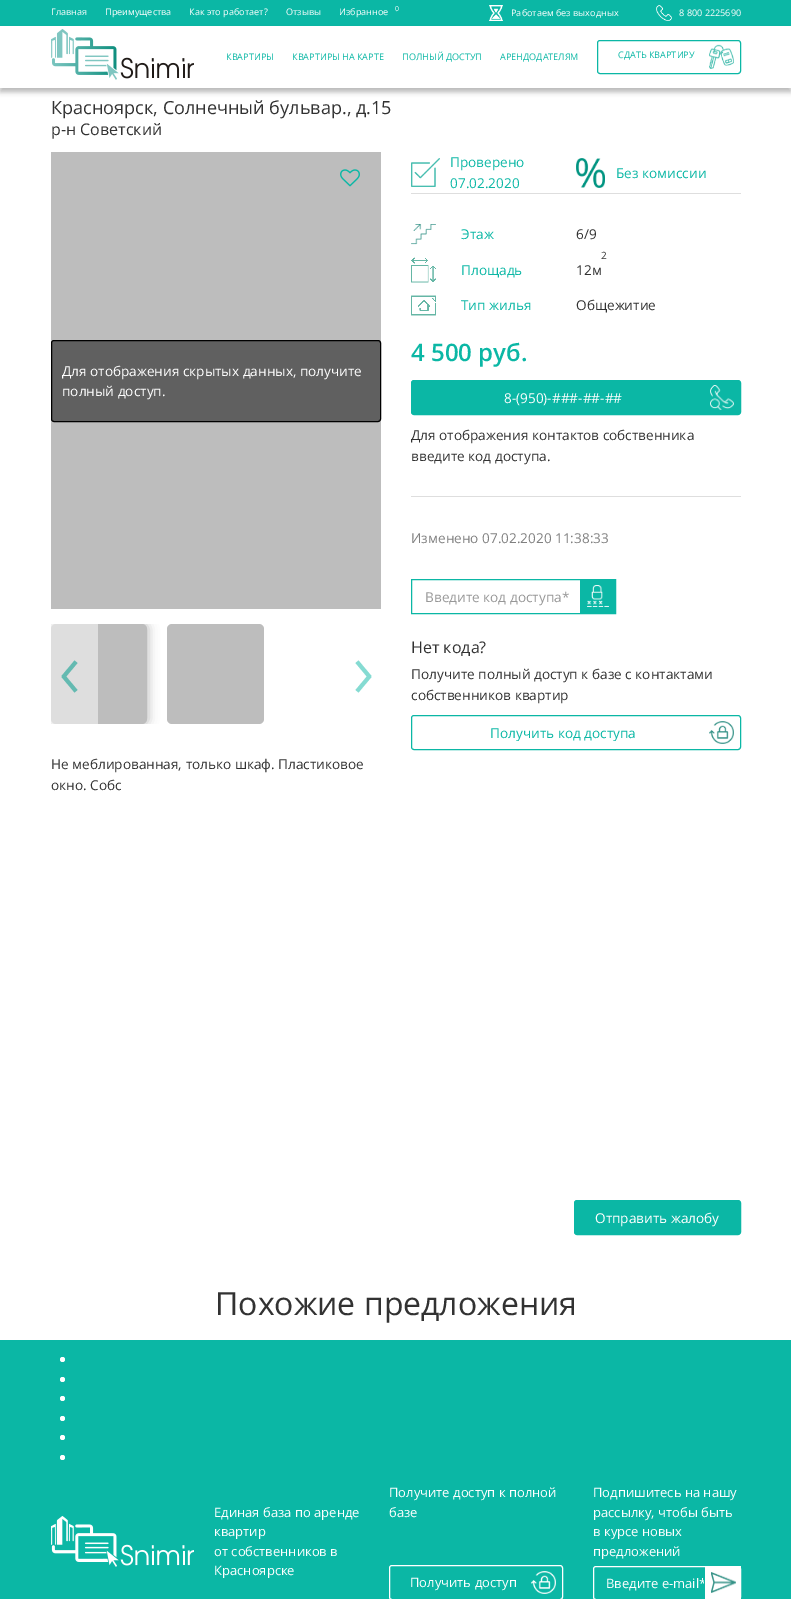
%!PS
<< /PageSize [791 1599] /PageUsesTransparency true >> setpagedevice
/mt/moveto load def
/li/lineto load def
/cp/closepath load def
/fl/fill load def
/st/stroke load def
/gs/gsave load def
/gr/grestore load def
/co { dup -16 bitshift 255 div exch dup -8 bitshift 255 and 255 div exch 255 and 255 div setrgbcolor } def
/fn { [ exch dup neg 0 0 3 -1 roll 0 0 ] selectfont } def
/tx { co fn moveto show } def
/bx { co rectfill } def
/al { dup .setfillconstantalpha .setstrokeconstantalpha } def
/ci { newpath 0 360 arc closepath } def
/rr { 5 dict begin { /r /h /w /y /x } { exch def } forall
  x r add y moveto x w add y 2 copy h add r arct x w add y h add x 1 index r arct
  x y h add x y r arct x y 2 copy exch w add exch r arct closepath end } def
/sh { 12 dict begin { /a /b /q /h /w /y /x } { exch def } forall gsave /was 0 def
  9 -2 -9 { dup b mul 4 div /e exch def 1 sub .425 mul 2.718 exch exp 1 add a .99 .min exch div /now exch def
    1 1 now sub 1 was sub div sub al /was now def
    w h .min e 2 mul add 0 gt { x e sub y e sub w e 2 mul add h e 2 mul add
      q e add b .6 mul add w h .min 2 div e add .min 0 .max rr fill } if } for grestore end } def
/im { 5 dict begin { /h /w /y /x /name } { exch def } forall
  gsave x y translate w h scale
  w h 8 [w 0 0 h 0 0] name (r) file false 3 colorimage grestore end } def
0 .pushpdf14devicefilter
0 1599 translate 1 -1 scale
4 setmiterlimit
0 0 791 1599 16#FFFFFF bx
0 0 791 26 16#0BB7A5 bx
(media/1.raw) 489 5 14 16 im
(media/2.raw) 656 5 16 16 im
16#000000 co
0 30 791 62 0 2.5 .27 sh
0 26 791 62 16#FFFFFF bx
(media/3.raw) 51 29 143 51 im
16#0BB7A5 co
597.5 40.5 143 33 2.5 rr st
(media/4.raw) 709 44 25 25 im
51 152 330 457 16#BDBDBD bx
(media/5.raw) 340 169 20 18 im
16#606060 co
51.5 340.5 329 81 2.5 rr gs fl gr
16#000000 co
st
gs
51 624 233 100 rectclip
16#BEBEBE co
49 622 100 104 7 5 1 sh
gr
16#BDBDBD co
51 624 96 100 5 rr fl
167 624 97 100 5 rr fl
0.5 al
51 624 47 100 16#FFFFFF bx
1 al
16#64BAB1 co
61.5 676 mt 74.5 660.5 li 77.5 663 li 64.5 678.5 li cp fl
64.5 674.5 mt 77.5 690 li 74.5 692.5 li 61.5 677 li cp fl
16#85DBD2 co
358.5 660.5 mt 371.5 676 li 368.5 678.5 li 355.5 663 li cp fl
355.5 690 mt 368.5 674.5 li 371.5 677 li 358.5 692.5 li cp fl
411 193 330 1 16#DEDEDE bx
(media/6.raw) 411 158 29 29 im
(media/7.raw) 576 158 29 30 im
(media/8.raw) 411 224 25 21 im
(media/9.raw) 411 257 25 26 im
(media/10.raw) 411 295 25 21 im
16#0BB7A5 co
411.5 380.5 329 34 2.5 rr gs fl gr
st
(media/11.raw) 710 385 24 25 im
411 496 330 1 16#DEDEDE bx
16#0BB7A5 co
411.5 579.5 204 34 rectstroke
580 580 35 33 16#0BB7A5 bx
(media/12.raw) 587 585 22 22 im
411.5 715.5 329 34 2.5 rr st
(media/13.raw) 709 721 25 23 im
574.5 1200.5 166 34 2.5 rr gs fl gr
st
0 1340 791 259 16#0BB7A5 bx
16#FFFFFF co
62.5 1359.5 2.5 ci fl
62.5 1379.5 2.5 ci fl
62.5 1398.5 2.5 ci fl
62.5 1418.5 2.5 ci fl
62.5 1437.5 2.5 ci fl
62.5 1457.5 2.5 ci fl
(media/14.raw) 51 1516 143 51 im
389.5 1565.5 173 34 2.5 rr st
(media/15.raw) 531 1571 25 23 im
593.5 1566.5 147 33 2.5 rr st
705 1566 36 33 16#FFFFFF bx
(media/16.raw) 711 1572 25 21 im
(Главная) 51 15 /OpenSans-Regular 9.1 16#FFFFFF tx
(Преимущества) 105 15 /OpenSans-Regular 9.1 16#FFFFFF tx
(Как это работает?) 189 15 /OpenSans-Regular 9.1 16#FFFFFF tx
(Отзывы) 286 15 /OpenSans-Regular 9.1 16#FFFFFF tx
(Избранное) 339 15 /OpenSans-Regular 9.1 16#FFFFFF tx
(0) 395 11 /OpenSans-Regular 7 16#FFFFFF tx
(Работаем без выходных) 511 16 /OpenSans-Regular 9.1 16#FFFFFF tx
(8 800 2225690) 679 16 /OpenSans-Regular 9.1 16#FFFFFF tx
(КВАРТИРЫ) 226 60 /OpenSans-Regular 9.1 16#0BB7A5 tx
(КВАРТИРЫ НА КАРТЕ) 292 60 /OpenSans-Regular 9.1 16#0BB7A5 tx
(ПОЛНЫЙ ДОСТУП) 402 60 /OpenSans-Regular 9.1 16#0BB7A5 tx
(АРЕНДОДАТЕЛЯМ) 500 60 /OpenSans-Regular 9.1 16#0BB7A5 tx
(СДАТЬ КВАРТИРУ) 618 58 /OpenSans-Regular 9.1 16#0BB7A5 tx
(Красноярск, Солнечный бульвар., д.15) 51 114 /OpenSans-Regular 18.1 16#323232 tx
(р-н Советский) 51 135 /OpenSans-Regular 16 16#323232 tx
(Для отображения скрытых данных, получите) 62 376 /OpenSans-Regular 13.6 16#FFFFFF tx
(полный доступ.) 62 396 /OpenSans-Regular 13.6 16#FFFFFF tx
(Не меблированная, только шкаф. Пластиковое) 51 769 /OpenSans-Regular 13.6 16#323232 tx
(окно. Собс) 51 790 /OpenSans-Regular 13.6 16#323232 tx
(Проверено) 450 167 /OpenSans-Regular 13.6 16#0BB7A5 tx
(07.02.2020) 450 188 /OpenSans-Regular 13.6 16#0BB7A5 tx
(Без комиссии) 616 178 /OpenSans-Regular 13.6 16#0BB7A5 tx
(Этаж) 461 239 /OpenSans-Regular 13.6 16#0BB7A5 tx
(6/9) 576 239 /OpenSans-Regular 13.6 16#323232 tx
(Площадь) 461 275 /OpenSans-Regular 13.6 16#0BB7A5 tx
(2) 601 259 /OpenSans-Regular 10 16#323232 tx
(12м) 576 275 /OpenSans-Regular 13.6 16#323232 tx
(Тип жилья) 461 310 /OpenSans-Regular 13.6 16#0BB7A5 tx
(Общежитие) 576 310 /OpenSans-Regular 13.6 16#323232 tx
(4 500 руб.) 411 361 /OpenSans-SemiBold 24 16#0BB7A5 tx
(8-\(950\)-###-##-##) 504 403 /OpenSans-Regular 13.6 16#FFFFFF tx
(Для отображения контактов собственника) 411 440 /OpenSans-Regular 13.6 16#323232 tx
(введите код доступа.) 411 461 /OpenSans-Regular 13.6 16#323232 tx
(Изменено 07.02.2020 11:38:33) 411 543 /OpenSans-Regular 13.6 16#808080 tx
(Введите код доступа*) 425 602 /OpenSans-Regular 13.6 16#979797 tx
(Нет кода?) 411 653 /OpenSans-Regular 16 16#323232 tx
(Получите полный доступ к базе с контактами) 411 679 /OpenSans-Regular 13.6 16#323232 tx
(собственников квартир) 411 700 /OpenSans-Regular 13.6 16#323232 tx
gs
432 725 288 16 rectclip
(Получить код доступа) 490 738 /OpenSans-Regular 13.6 16#0BB7A5 tx
gr
(Отправить жалобу) 595 1223 /OpenSans-Regular 13.6 16#FFFFFF tx
(Похожие предложения) 215 1315 /OpenSans-Regular 32 16#323232 tx
(Единая база по аренде) 214 1517 /OpenSans-Regular 13 16#FFFFFF tx
(квартир) 214 1536 /OpenSans-Regular 13 16#FFFFFF tx
(от собственников в) 214 1556 /OpenSans-Regular 13 16#FFFFFF tx
(Красноярске) 214 1575 /OpenSans-Regular 13 16#FFFFFF tx
(Получите доступ к полной) 389 1497 /OpenSans-Regular 13 16#FFFFFF tx
(базе) 389 1517 /OpenSans-Regular 13 16#FFFFFF tx
(Получить доступ) 410 1587 /OpenSans-Regular 13 16#FFFFFF tx
(Подпишитесь на нашу) 593 1497 /OpenSans-Regular 13 16#FFFFFF tx
(рассылку, чтобы быть) 593 1517 /OpenSans-Regular 13 16#FFFFFF tx
(в курсе новых) 593 1536 /OpenSans-Regular 13 16#FFFFFF tx
(предложений) 593 1556 /OpenSans-Regular 13 16#FFFFFF tx
gs
606 1574 98 18 rectclip
(Введите e-mail*) 606 1588 /OpenSans-Regular 13 16#FFFFFF tx
gr
.poppdf14devicefilter showpage
